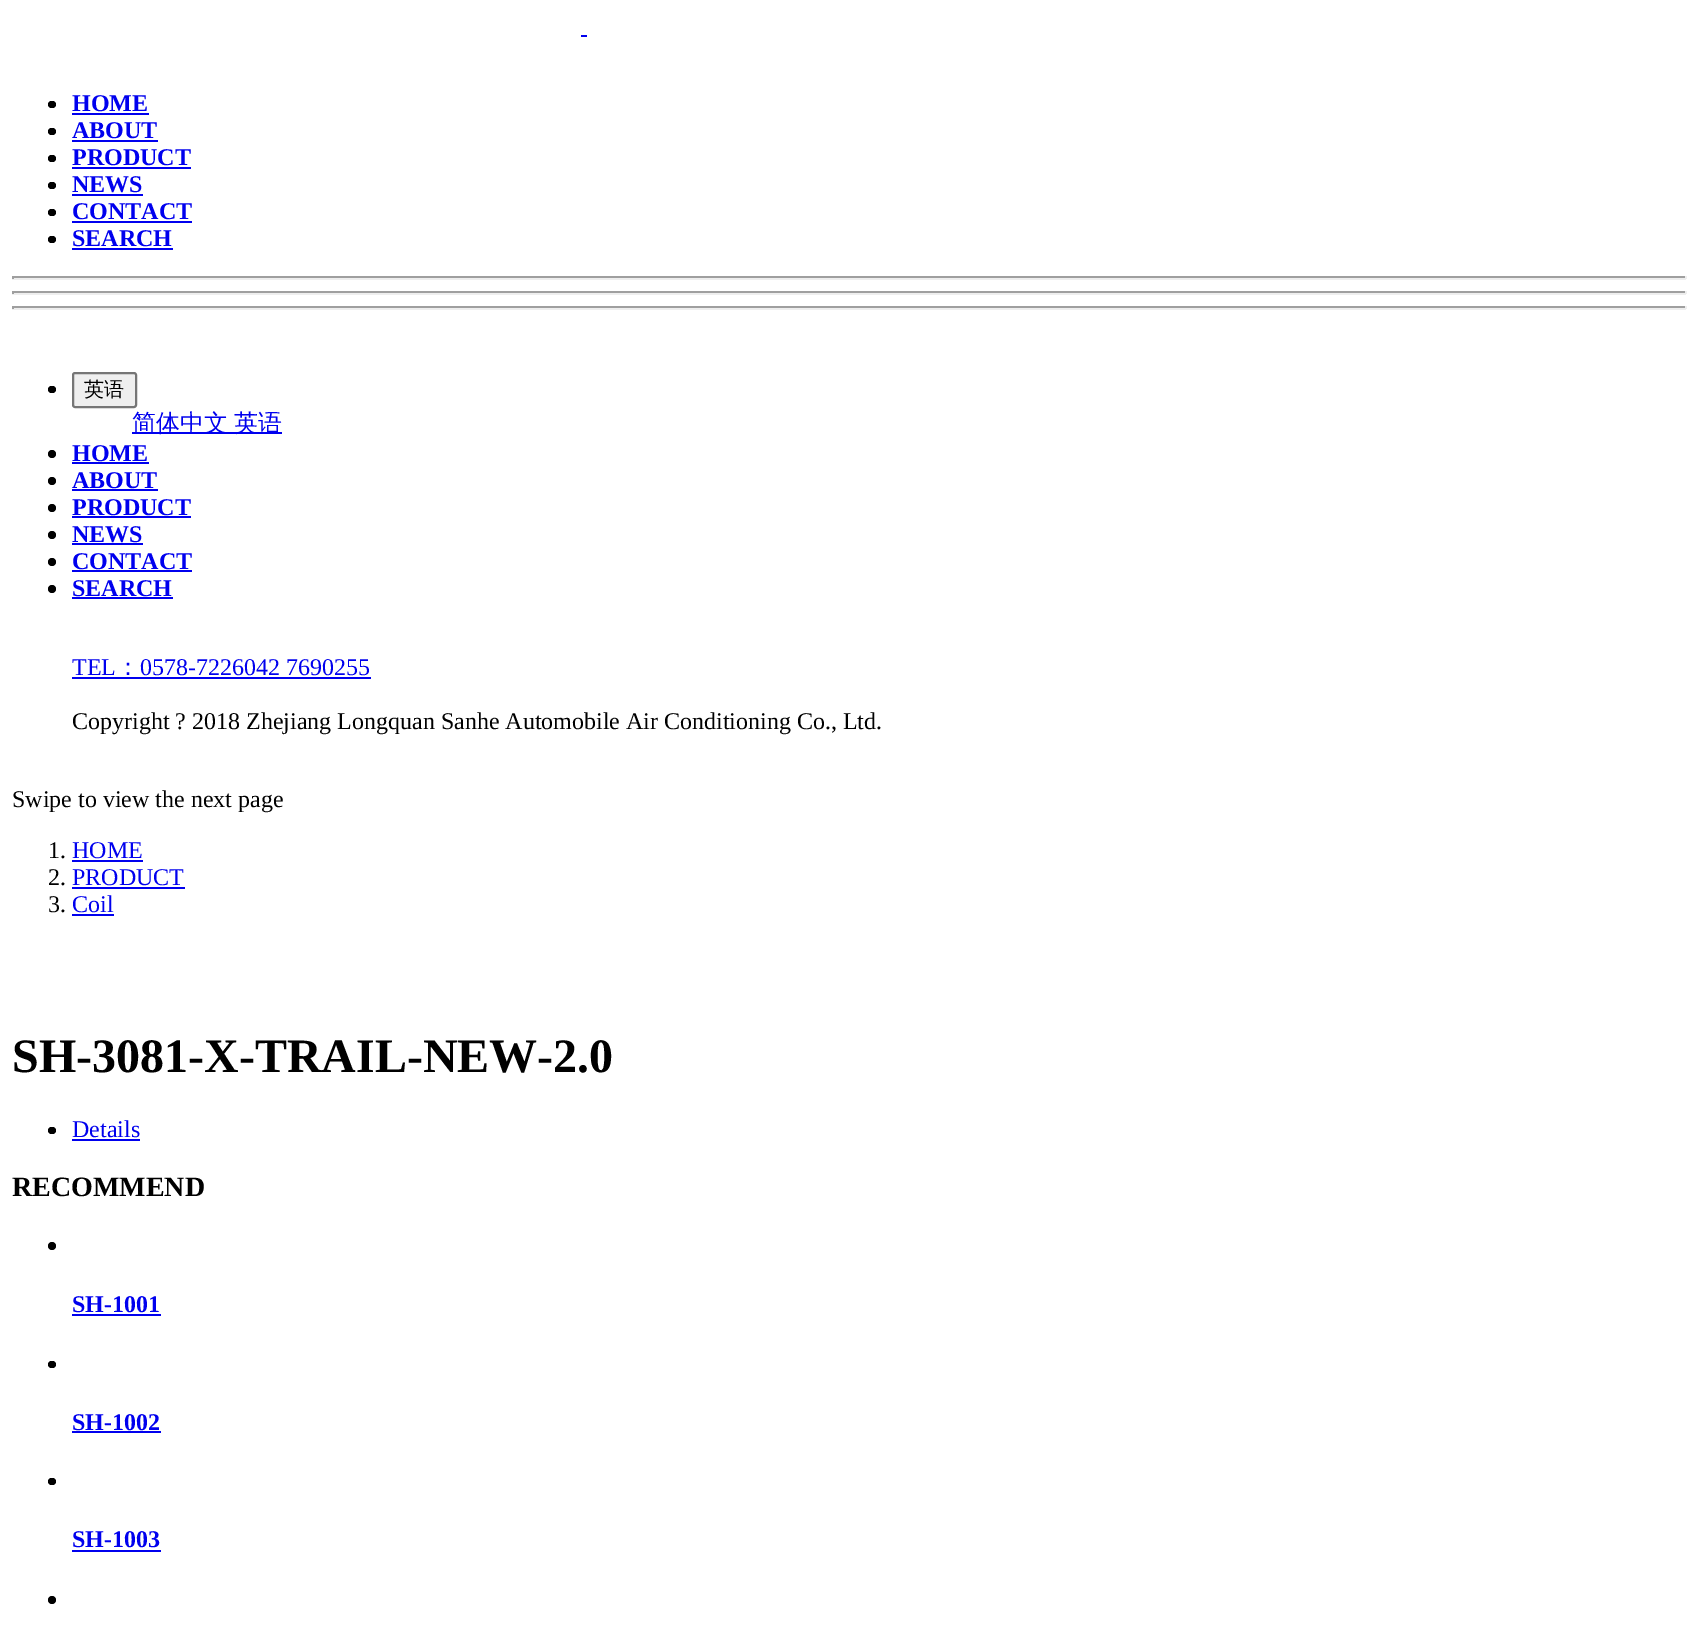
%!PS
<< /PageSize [1697 1627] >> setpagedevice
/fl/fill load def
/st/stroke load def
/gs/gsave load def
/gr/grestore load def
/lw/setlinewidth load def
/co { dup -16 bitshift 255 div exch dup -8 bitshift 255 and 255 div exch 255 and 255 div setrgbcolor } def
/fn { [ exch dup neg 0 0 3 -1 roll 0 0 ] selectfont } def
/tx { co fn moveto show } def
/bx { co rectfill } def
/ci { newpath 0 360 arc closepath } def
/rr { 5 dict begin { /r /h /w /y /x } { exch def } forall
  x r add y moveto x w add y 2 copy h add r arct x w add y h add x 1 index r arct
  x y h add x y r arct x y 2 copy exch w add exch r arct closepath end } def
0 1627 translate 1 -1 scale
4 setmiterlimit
0 0 1697 1627 16#FFFFFF bx
581 35 6 2 16#0000EE bx
16#000000 co
48 101 8 7 3.5 rr fl
72 113 77 2 16#0000EE bx
16#000000 co
48 128 8 7 3.5 rr fl
72 140 86 2 16#0000EE bx
16#000000 co
48 155 8 7 3.5 rr fl
72 167 119 2 16#0000EE bx
16#000000 co
48 182 8 7 3.5 rr fl
72 194 71 2 16#0000EE bx
16#000000 co
48 209 8 7 3.5 rr fl
72 221 120 2 16#0000EE bx
16#000000 co
48 236 8 7 3.5 rr fl
72 248 101 2 16#0000EE bx
12 276 1674 2 16#9F9F9F bx
1685 276 2 3 16#EEEEEE bx
12 278 1674 2 16#EEEEEE bx
12 276 2 3 16#9F9F9F bx
12 291 1674 2 16#9F9F9F bx
1685 291 2 3 16#EEEEEE bx
12 293 1674 2 16#EEEEEE bx
12 291 2 3 16#9F9F9F bx
12 306 1674 2 16#9F9F9F bx
1685 306 2 3 16#EEEEEE bx
12 308 1674 2 16#EEEEEE bx
12 306 2 3 16#9F9F9F bx
16#000000 co
48 386 8 7 3.5 rr fl
16#EFEFEF co
73 373 63 34 2 rr gs fl gr
16#767676 co
2 lw
st
132 432 150 2 16#0000EE bx
16#000000 co
52 454 4 ci fl
72 462 77 2 16#0000EE bx
16#000000 co
52 481 4 ci fl
72 489 86 2 16#0000EE bx
16#000000 co
52 508 4 ci fl
72 516 119 2 16#0000EE bx
16#000000 co
52 535 4 ci fl
72 543 71 2 16#0000EE bx
16#000000 co
52 562 4 ci fl
72 570 120 2 16#0000EE bx
16#000000 co
52 589 4 ci fl
72 597 101 2 16#0000EE bx
72 677 299 2 16#0000EE bx
72 860 71 2 16#0000EE bx
72 887 113 2 16#0000EE bx
72 914 42 2 16#0000EE bx
16#000000 co
48 1127 8 7 3.5 rr fl
72 1139 68 2 16#0000EE bx
16#000000 co
52 1246 4 ci fl
72 1314 89 2 16#0000EE bx
16#000000 co
48 1361 8 7 3.5 rr fl
72 1431 89 2 16#0000EE bx
16#000000 co
48 1478 8 7 3.5 rr fl
72 1550 89 2 16#0000EE bx
16#000000 co
52 1600 4 ci fl
(HOME) 72 111 /LiberationSerif-Bold 24 16#0000EE tx
(ABOUT) 72 138 /LiberationSerif-Bold 24 16#0000EE tx
(PRODUCT) 72 165 /LiberationSerif-Bold 24 16#0000EE tx
(NEWS) 72 192 /LiberationSerif-Bold 24 16#0000EE tx
(CONTACT) 72 219 /LiberationSerif-Bold 24 16#0000EE tx
(SEARCH) 72 246 /LiberationSerif-Bold 24 16#0000EE tx
(英语) 84 396 /WenQuanYiZenHei-Medium 20 16#000000 tx
(简体中文) 132 431 /WenQuanYiZenHei-Medium 24 16#0000EE tx
(英语) 234 431 /WenQuanYiZenHei-Medium 24 16#0000EE tx
(HOME) 72 461 /LiberationSerif-Bold 24 16#0000EE tx
(ABOUT) 72 488 /LiberationSerif-Bold 24 16#0000EE tx
(PRODUCT) 72 515 /LiberationSerif-Bold 24 16#0000EE tx
(NEWS) 72 542 /LiberationSerif-Bold 24 16#0000EE tx
(CONTACT) 72 569 /LiberationSerif-Bold 24 16#0000EE tx
(SEARCH) 72 596 /LiberationSerif-Bold 24 16#0000EE tx
(TEL) 72 675 /LiberationSerif-Regular 24 16#0000EE tx
(：) 116 675 /WenQuanYiZenHei-Medium 24 16#0000EE tx
(0578-7226042 7690255) 140 675 /LiberationSerif-Regular 24 16#0000EE tx
(Copyright ? 2018 Zhejiang Longquan Sanhe Automobile Air Conditioning Co., Ltd.) 72 729 /LiberationSerif-Regular 24 16#000000 tx
(Swipe to view the next page) 12 807 /LiberationSerif-Regular 24 16#000000 tx
(1.) 48 858 /LiberationSerif-Regular 24 16#000000 tx
(HOME) 72 858 /LiberationSerif-Regular 24 16#0000EE tx
(2.) 48 885 /LiberationSerif-Regular 24 16#000000 tx
(PRODUCT) 72 885 /LiberationSerif-Regular 24 16#0000EE tx
(3.) 48 912 /LiberationSerif-Regular 24 16#000000 tx
(Coil) 72 912 /LiberationSerif-Regular 24 16#0000EE tx
(SH-3081-X-TRAIL-NEW-2.0) 12 1072 /LiberationSerif-Bold 48 16#000000 tx
(Details) 72 1137 /LiberationSerif-Regular 24 16#0000EE tx
(RECOMMEND) 12 1196 /LiberationSerif-Bold 28 16#000000 tx
(SH-1001) 72 1312 /LiberationSerif-Bold 24 16#0000EE tx
(SH-1002) 72 1430 /LiberationSerif-Bold 24 16#0000EE tx
(SH-1003) 72 1547 /LiberationSerif-Bold 24 16#0000EE tx
showpage
